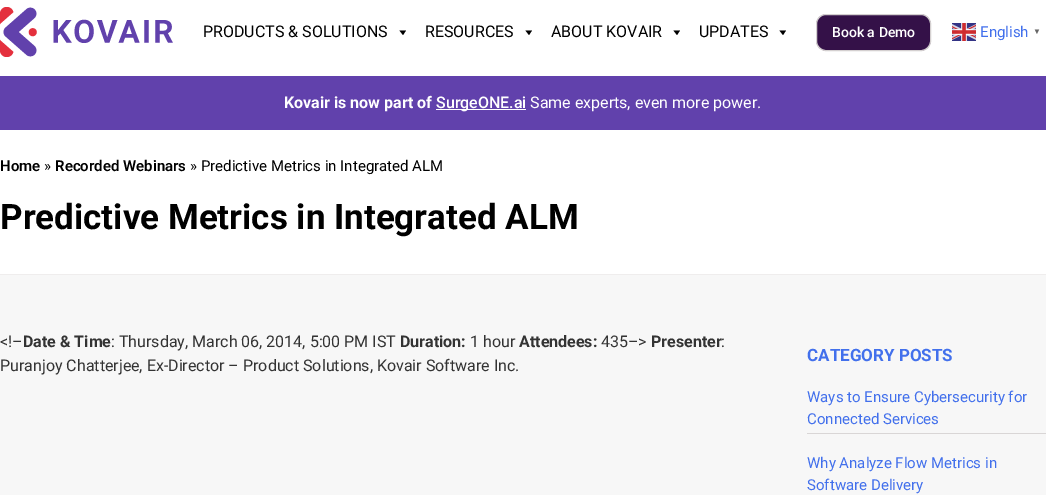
%!PS
<< /PageSize [1046 495] >> setpagedevice
/mt/moveto load def
/li/lineto load def
/cp/closepath load def
/fl/fill load def
/st/stroke load def
/gs/gsave load def
/gr/grestore load def
/co { dup -16 bitshift 255 div exch dup -8 bitshift 255 and 255 div exch 255 and 255 div setrgbcolor } def
/fn { [ exch dup neg 0 0 3 -1 roll 0 0 ] selectfont } def
/tx { co fn moveto show } def
/bx { co rectfill } def
/rr { 5 dict begin { /r /h /w /y /x } { exch def } forall
  x r add y moveto x w add y 2 copy h add r arct x w add y h add x 1 index r arct
  x y h add x y r arct x y 2 copy exch w add exch r arct closepath end } def
/im { 5 dict begin { /h /w /y /x /name } { exch def } forall
  gsave x y translate w h scale
  w h 8 [w 0 0 h 0 0] name (r) file false 3 colorimage grestore end } def
0 495 translate 1 -1 scale
4 setmiterlimit
0 0 1046 495 16#FFFFFF bx
(media/1.raw) 0 7 173 50 im
16#000000 co
406 30.5 mt 403 35 li 399.5 30.5 li cp fl
532 30.5 mt 529 35 li 525.5 30.5 li cp fl
680 30.5 mt 677 35 li 673.5 30.5 li cp fl
786 30.5 mt 783 35 li 779.5 30.5 li cp fl
16#341148 co
816.5 14.5 114 36 9.5 rr gs fl gr
16#D4D0D0 co
st
(media/2.raw) 952 23 24 18 im
0 76 1046 54 16#6141AC bx
436 109 90 1 16#FFFFFF bx
0 274 1046 1 16#EFEDED bx
0 275 1046 220 16#F7F7F7 bx
807 433 239 1 16#D9D6D6 bx
(PRODUCTS & SOLUTIONS) 203 37 /Roboto-Regular 16 16#000000 tx
(RESOURCES) 425 37 /Roboto-Regular 16 16#000000 tx
(ABOUT KOVAIR) 551 37 /Roboto-Regular 16 16#000000 tx
(UPDATES) 699 37 /Roboto-Regular 16 16#000000 tx
(Book a Demo) 832 37 /Roboto-Medium 14 16#FFFFFF tx
(English) 980 37 /Roboto-Regular 15 16#4270EC tx
(▼) 1033 34 /LiberationSans-Bold 8 16#666666 tx
(Kovair is now part of) 284 108 /Roboto-Bold 16 16#FFFFFF tx
(SurgeONE.ai) 436 108 /Roboto-Medium 16 16#FFFFFF tx
(Same experts, even more power.) 530 108 /Roboto-Regular 16 16#FFFFFF tx
(Home) 0 171 /Roboto-SemiBold 15 16#000000 tx
(») 44 171 /Roboto-Regular 15 16#000000 tx
(Recorded Webinars) 55 171 /Roboto-SemiBold 15 16#000000 tx
(» Predictive Metrics in Integrated ALM) 190 171 /Roboto-Regular 15 16#000000 tx
(Predictive Metrics in Integrated ALM) 0 229 /Roboto-Bold 35 16#000000 tx
(<!–) 0 347 /Roboto-Regular 16 16#333333 tx
(Date & Time) 23 347 /Roboto-Bold 16 16#333333 tx
(: Thursday, March 06, 2014, 5:00 PM IST) 111 347 /Roboto-Regular 16 16#333333 tx
(Duration:) 400 347 /Roboto-Bold 16 16#333333 tx
(1 hour) 470 347 /Roboto-Regular 16 16#333333 tx
(Attendees:) 519 347 /Roboto-Bold 16 16#333333 tx
(435–>) 601 347 /Roboto-Regular 16 16#333333 tx
(Presenter) 651 347 /Roboto-Bold 16 16#333333 tx
(:) 721 347 /Roboto-Regular 16 16#333333 tx
(Puranjoy Chatterjee, Ex-Director – Product Solutions, Kovair Software Inc.) 0 371 /Roboto-Regular 16 16#333333 tx
(CATEGORY POSTS) 807 361 /Roboto-Bold 17 16#4270EC tx
(Ways to Ensure Cybersecurity for) 807 402 /Roboto-Regular 15 16#4270EC tx
(Connected Services) 807 424 /Roboto-Regular 15 16#4270EC tx
(Why Analyze Flow Metrics in) 807 468 /Roboto-Regular 15 16#4270EC tx
(Software Delivery) 807 490 /Roboto-Regular 15 16#4270EC tx
showpage
